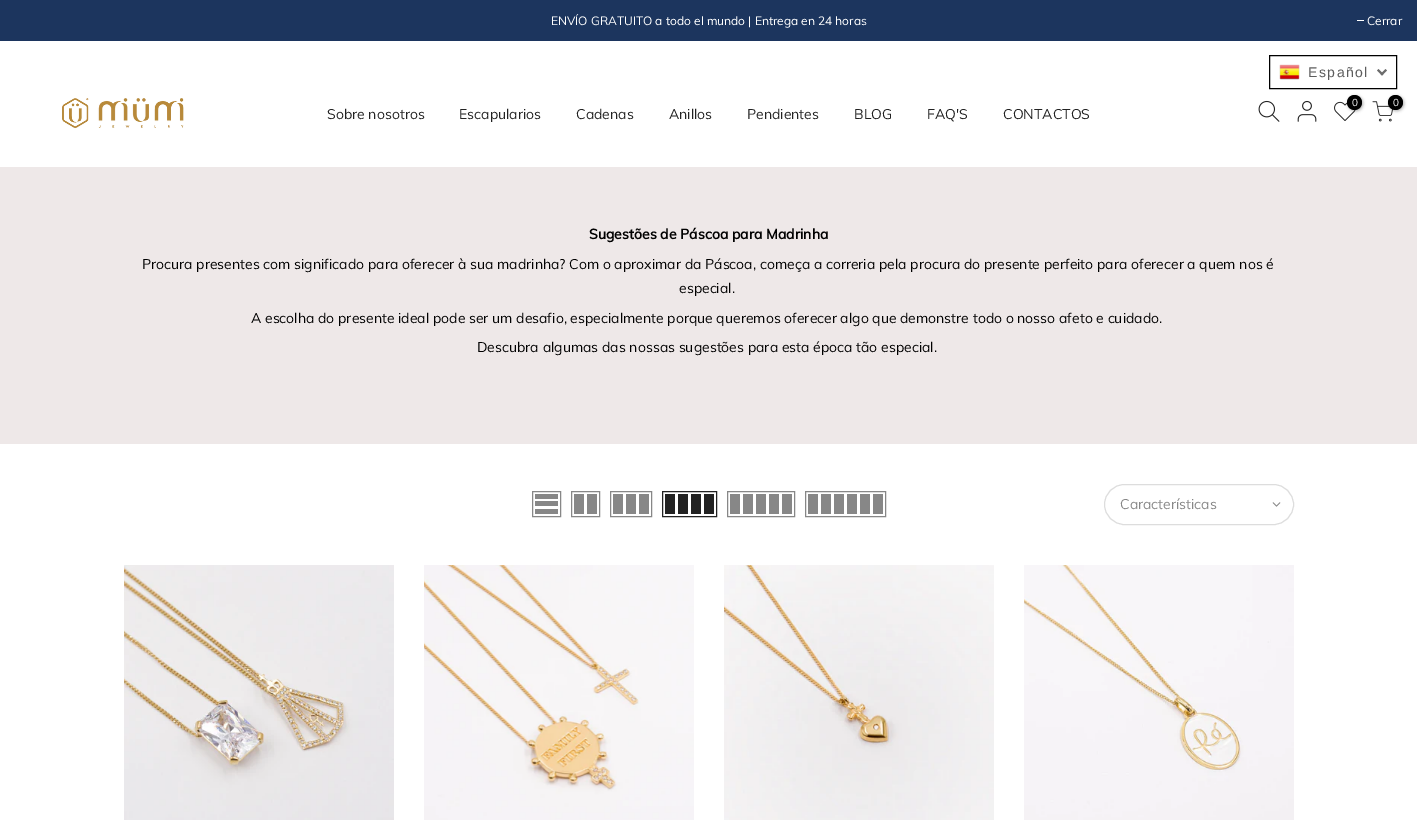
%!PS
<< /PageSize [1417 820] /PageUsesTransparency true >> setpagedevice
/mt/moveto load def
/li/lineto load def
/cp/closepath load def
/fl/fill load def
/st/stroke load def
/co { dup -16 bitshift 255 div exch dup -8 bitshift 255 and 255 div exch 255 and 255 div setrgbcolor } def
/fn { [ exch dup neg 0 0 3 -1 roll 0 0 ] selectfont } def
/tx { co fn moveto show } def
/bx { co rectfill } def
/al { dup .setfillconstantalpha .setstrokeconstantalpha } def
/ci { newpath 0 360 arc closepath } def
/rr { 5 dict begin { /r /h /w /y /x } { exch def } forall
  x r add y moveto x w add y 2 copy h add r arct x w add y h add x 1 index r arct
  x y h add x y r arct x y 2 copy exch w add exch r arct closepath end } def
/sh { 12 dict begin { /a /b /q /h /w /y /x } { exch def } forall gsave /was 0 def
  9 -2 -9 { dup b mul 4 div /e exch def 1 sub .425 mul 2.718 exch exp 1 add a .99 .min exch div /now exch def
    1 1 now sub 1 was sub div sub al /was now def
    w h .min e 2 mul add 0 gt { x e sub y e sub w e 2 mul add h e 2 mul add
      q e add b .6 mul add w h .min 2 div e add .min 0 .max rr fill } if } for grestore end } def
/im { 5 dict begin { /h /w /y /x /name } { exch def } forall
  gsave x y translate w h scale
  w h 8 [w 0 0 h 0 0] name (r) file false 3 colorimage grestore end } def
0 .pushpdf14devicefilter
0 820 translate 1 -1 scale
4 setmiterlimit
0 0 1417 820 16#FFFFFF bx
0 0 1417 41 16#1C355E bx
1357 20 7 1 16#FFFFFF bx
16#000000 co
1269.5 55.5 127 33 rectstroke
(media/1.raw) 1279 64 21 16 im
16#6C6C6C co
1385.5 69 mt 1387 70.5 li 1382 75.5 li 1380.5 74 li cp fl
1378.5 69 mt 1383.5 74 li 1382 75.5 li 1377 70.5 li cp fl
(media/2.raw) 62 98 122 31 im
(media/3.raw) 1258 100 22 22 im
(media/4.raw) 1297 100 20 22 im
(media/5.raw) 1334 101 22 20 im
16#000000 co
1348 96 15 15 7.5 1.5 .3 sh
1354.5 102.5 7.5 ci fl
(media/6.raw) 1372 101 21 21 im
1389 96 15 15 7.5 1.5 .3 sh
1395.5 102.5 7.5 ci fl
0 167 1417 277 16#EEE8E8 bx
16#878787 co
532.5 491.5 28 25 rectstroke
535 509 23 5 16#878787 bx
535 501 23 5 16#878787 bx
535 494 23 5 16#878787 bx
571.5 491.5 28 25 rectstroke
587 494 10 20 16#878787 bx
574 494 10 20 16#878787 bx
610.5 491.5 41 25 rectstroke
639 494 10 20 16#878787 bx
626 494 10 20 16#878787 bx
613 494 10 20 16#878787 bx
16#222222 co
662.5 491.5 54 25 rectstroke
704 494 10 20 16#222222 bx
691 494 10 20 16#222222 bx
678 494 10 20 16#222222 bx
665 494 10 20 16#222222 bx
16#878787 co
727.5 491.5 67 25 rectstroke
782 494 10 20 16#878787 bx
769 494 10 20 16#878787 bx
756 494 10 20 16#878787 bx
743 494 10 20 16#878787 bx
730 494 10 20 16#878787 bx
805.5 491.5 80 25 rectstroke
873 494 10 20 16#878787 bx
860 494 10 20 16#878787 bx
847 494 10 20 16#878787 bx
834 494 10 20 16#878787 bx
821 494 10 20 16#878787 bx
808 494 10 20 16#878787 bx
16#DDDDDD co
1104.5 484.5 189 40 20 rr st
(media/7.raw) 1272 502 9 5 im
(media/8.raw) 124 565 270 255 im
(media/9.raw) 424 565 270 255 im
(media/10.raw) 724 565 270 255 im
(media/11.raw) 1024 565 270 255 im
(ENVÍO GRATUITO a todo el mundo | Entrega en 24 horas) 551 25 /Muli-Regular 12 16#FFFFFF tx
(Cerrar) 1367 25 /Muli-Regular 12 16#FFFFFF tx
/LiberationSans-Regular 14 fn
16#5C5C5C co
1308 77 mt 1.5 0 (Español) ashow
(0) 1352 106 /Muli-Regular 10 16#FFFFFF tx
(0) 1393 106 /Muli-Regular 10 16#FFFFFF tx
(Sobre nosotros) 327 119 /Muli-Regular 14 16#222222 tx
(Escapularios) 459 119 /Muli-Regular 14 16#222222 tx
(Cadenas) 576 119 /Muli-Regular 14 16#222222 tx
(Anillos) 669 119 /Muli-Regular 14 16#222222 tx
(Pendientes) 747 119 /Muli-Regular 14 16#222222 tx
(BLOG) 854 119 /Muli-Regular 14 16#222222 tx
(FAQ'S) 927 119 /Muli-Regular 14 16#222222 tx
(CONTACTOS) 1003 119 /Muli-Regular 14 16#222222 tx
(Sugestões de Páscoa para Madrinha) 589 239 /Muli-Bold 14 16#000000 tx
(Procura presentes com significado para oferecer à sua madrinha? Com o aproximar da Páscoa, começa a correria pela procura do presente perfeito para oferecer a quem nos é) 142 269 /Muli-Regular 14 16#000000 tx
(especial.) 679 293 /Muli-Regular 14 16#000000 tx
(A escolha do presente ideal pode ser um desafio, especialmente porque queremos oferecer algo que demonstre todo o nosso afeto e cuidado.) 251 323 /Muli-Regular 14 16#000000 tx
(Descubra algumas das nossas sugestões para esta época tão especial.) 477 352 /Muli-Regular 14 16#000000 tx
(Características) 1120 509 /Muli-Regular 14 16#878787 tx
.poppdf14devicefilter showpage
